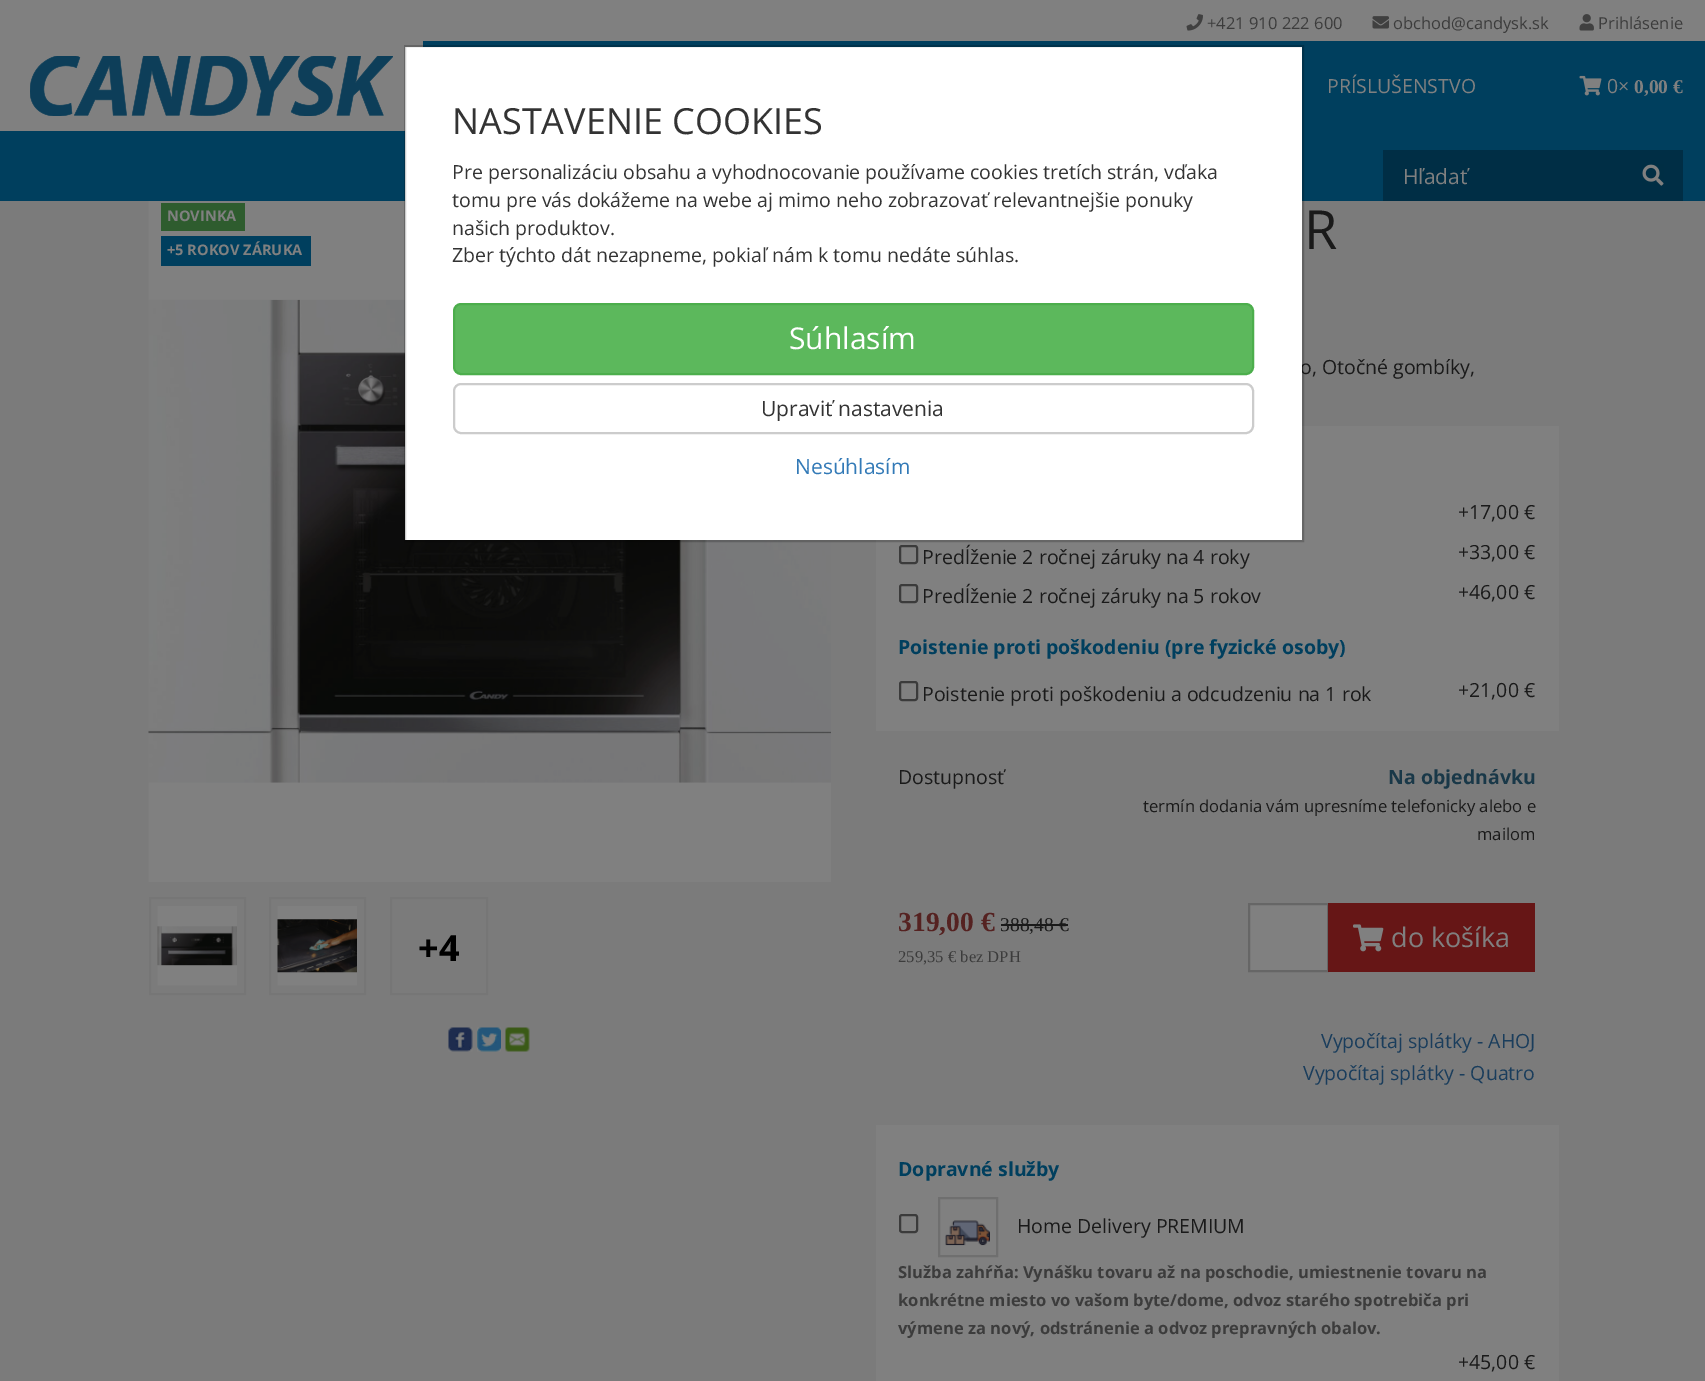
%!PS
<< /PageSize [1705 1381] /PageUsesTransparency true >> setpagedevice
/mt/moveto load def
/li/lineto load def
/cp/closepath load def
/fl/fill load def
/st/stroke load def
/gs/gsave load def
/gr/grestore load def
/lw/setlinewidth load def
/co { dup -16 bitshift 255 div exch dup -8 bitshift 255 and 255 div exch 255 and 255 div setrgbcolor } def
/fn { [ exch dup neg 0 0 3 -1 roll 0 0 ] selectfont } def
/tx { co fn moveto show } def
/bx { co rectfill } def
/al { dup .setfillconstantalpha .setstrokeconstantalpha } def
/rr { 5 dict begin { /r /h /w /y /x } { exch def } forall
  x r add y moveto x w add y 2 copy h add r arct x w add y h add x 1 index r arct
  x y h add x y r arct x y 2 copy exch w add exch r arct closepath end } def
/im { 5 dict begin { /h /w /y /x /name } { exch def } forall
  gsave x y translate w h scale
  w h 8 [w 0 0 h 0 0] name (r) file false 3 colorimage grestore end } def
0 .pushpdf14devicefilter
0 1381 translate 1 -1 scale
4 setmiterlimit
0 0 1705 1381 16#7B7B7B bx
0 0 1705 41 16#808080 bx
(media/1.raw) 1186 14 17 17 im
(media/2.raw) 1372 16 17 13 im
(media/3.raw) 1579 14 15 17 im
0 41 1705 160 16#003F5E bx
0 41 423 90 16#808080 bx
(media/4.raw) 30 56 363 60 im
(media/5.raw) 1579 75 23 21 im
1383 150 300 51 16#002E45 bx
(media/6.raw) 1642 164 22 22 im
(media/7.raw) 148 201 683 681 im
161 203 84 28 16#2E5C2E bx
161 236 150 30 16#003F5E bx
16#767676 co
2 lw
150 898 95 96 rectstroke
(media/8.raw) 157 906 80 80 im
270 898 95 96 rectstroke
(media/9.raw) 277 906 80 80 im
391 898 96 96 rectstroke
(media/10.raw) 448 1027 25 25 im
(media/11.raw) 477 1027 24 25 im
(media/12.raw) 505 1027 25 25 im
876 426 683 305 16#808080 bx
16#3B3B3B co
900 546 17 17 2 rr st
900 585 17 17 2 rr st
900 682 17 18 2 rr st
1001 924 67 2 16#1A1A1A bx
16#808080 co
1249 904 mt 1328 904 li 1328 971 li 1249 971 li cp gs fl gr
16#666666 co
st
1328 903 207 69 16#661616 bx
(media/13.raw) 1353 924 31 28 im
876 1125 683 256 16#808080 bx
16#3B3B3B co
900 1215 17 17 2 rr st
16#6F6F6F co
939 1198 58 58 rectstroke
(media/14.raw) 945 1220 45 26 im
(+421 910 222 600) 1207 29 /OpenSans-Regular 16.5 16#3C3C3C tx
(obchod@candysk.sk) 1393 29 /OpenSans-Regular 16.5 16#3C3C3C tx
(Prihlásenie) 1598 29 /OpenSans-Regular 16.5 16#3C3C3C tx
(PRÍSLUŠENSTVO) 1327 93 /OpenSans-Regular 19.5 16#808080 tx
(0×) 1607 93 /OpenSans-Regular 19.5 16#808080 tx
(0,00 €) 1634 93 /LiberationSerif-Bold 19.5 16#808080 tx
(Hľadať) 1403 184 /OpenSans-Regular 21 16#808080 tx
(NOVINKA) 167 221 /OpenSans-Bold 14.6 16#808080 tx
(+5 ROKOV ZÁRUKA) 167 255 /OpenSans-Bold 14.6 16#808080 tx
(+4) 418 961 /OpenSans-Bold 36 16#000000 tx
(R) 1304 249 /OpenSans-Regular 54 16#1A1A1A tx
(o, Otočné gombíky,) 1300 374 /OpenSans-Regular 19.5 16#1A1A1A tx
405 47 897 493 16#FFFFFF bx
0.2 al
16#000000 co
405 46 898 495 rectstroke
1 al
(Nesúhlasím) 795 474 /OpenSans-Regular 21 16#337AB7 tx
16#CCCCCC co
454 384 799 49 7 rr st
(Upraviť nastavenia) 761 416 /OpenSans-Regular 21 16#333333 tx
16#5CB85C co
454 304 799 70 7 rr gs fl gr
16#4CAE4C co
st
(Súhlasím) 789 349 /OpenSans-Regular 30 16#FFFFFF tx
(Zber týchto dát nezapneme, pokiaľ nám k tomu nedáte súhlas.) 452 262 /OpenSans-Regular 19.5 16#333333 tx
(našich produktov.) 452 235 /OpenSans-Regular 19.5 16#333333 tx
(tomu pre vás dokážeme na webe aj mimo neho zobrazovať relevantnejšie ponuky) 452 207 /OpenSans-Regular 19.5 16#333333 tx
(Pre personalizáciu obsahu a vyhodnocovanie používame cookies tretích strán, vďaka) 452 179 /OpenSans-Regular 19.5 16#333333 tx
(NASTAVENIE COOKIES) 452 134 /OpenSans-Regular 36 16#333333 tx
(+17,00 €) 1458 519 /OpenSans-Regular 19.5 16#1A1A1A tx
(Predĺženie 2 ročnej záruky na 4 roky) 922 564 /OpenSans-Regular 19.5 16#1A1A1A tx
(+33,00 €) 1458 559 /OpenSans-Regular 19.5 16#1A1A1A tx
(Predĺženie 2 ročnej záruky na 5 rokov) 922 603 /OpenSans-Regular 19.5 16#1A1A1A tx
(+46,00 €) 1458 599 /OpenSans-Regular 19.5 16#1A1A1A tx
(Poistenie proti poškodeniu \(pre fyzické osoby\)) 898 654 /OpenSans-Bold 19.5 16#003F5E tx
(Poistenie proti poškodeniu a odcudzeniu na 1 rok) 922 701 /OpenSans-Regular 19.5 16#1A1A1A tx
(+21,00 €) 1458 697 /OpenSans-Regular 19.5 16#1A1A1A tx
(Dostupnosť) 898 784 /OpenSans-Regular 19.5 16#1A1A1A tx
(Na objednávku) 1388 784 /OpenSans-Bold 19.5 16#193848 tx
(termín dodania vám upresníme telefonicky alebo e) 1143 812 /OpenSans-Regular 16.6 16#1A1A1A tx
(mailom) 1477 840 /OpenSans-Regular 16.6 16#1A1A1A tx
(319,00 €) 898 931 /LiberationSerif-Bold 27.5 16#552221 tx
(388,48 €) 1000 931 /LiberationSerif-Regular 19.5 16#1A1A1A tx
(259,35 € bez DPH) 898 962 /LiberationSerif-Regular 16.6 16#3C3C3C tx
(do košíka) 1391 947 /OpenSans-Regular 27 16#808080 tx
(Vypočítaj splátky - AHOJ) 1321 1048 /OpenSans-Regular 19.5 16#1A3D5C tx
(Vypočítaj splátky - Quatro) 1303 1080 /OpenSans-Regular 19.5 16#1A3D5C tx
(Dopravné služby) 898 1176 /OpenSans-Bold 19.5 16#003F5E tx
(Home Delivery PREMIUM) 1017 1233 /OpenSans-Regular 19.5 16#1A1A1A tx
(Služba zahŕňa: Vynášku tovaru až na poschodie, umiestnenie tovaru na) 898 1278 /OpenSans-Bold 16.6 16#3C3C3C tx
(konkrétne miesto vo vašom byte/dome, odvoz starého spotrebiča pri) 898 1306 /OpenSans-Bold 16.6 16#3C3C3C tx
(výmene za nový, odstránenie a odvoz prepravných obalov.) 898 1334 /OpenSans-Bold 16.6 16#3C3C3C tx
(+45,00 €) 1458 1369 /OpenSans-Regular 19.5 16#1A1A1A tx
.poppdf14devicefilter showpage
